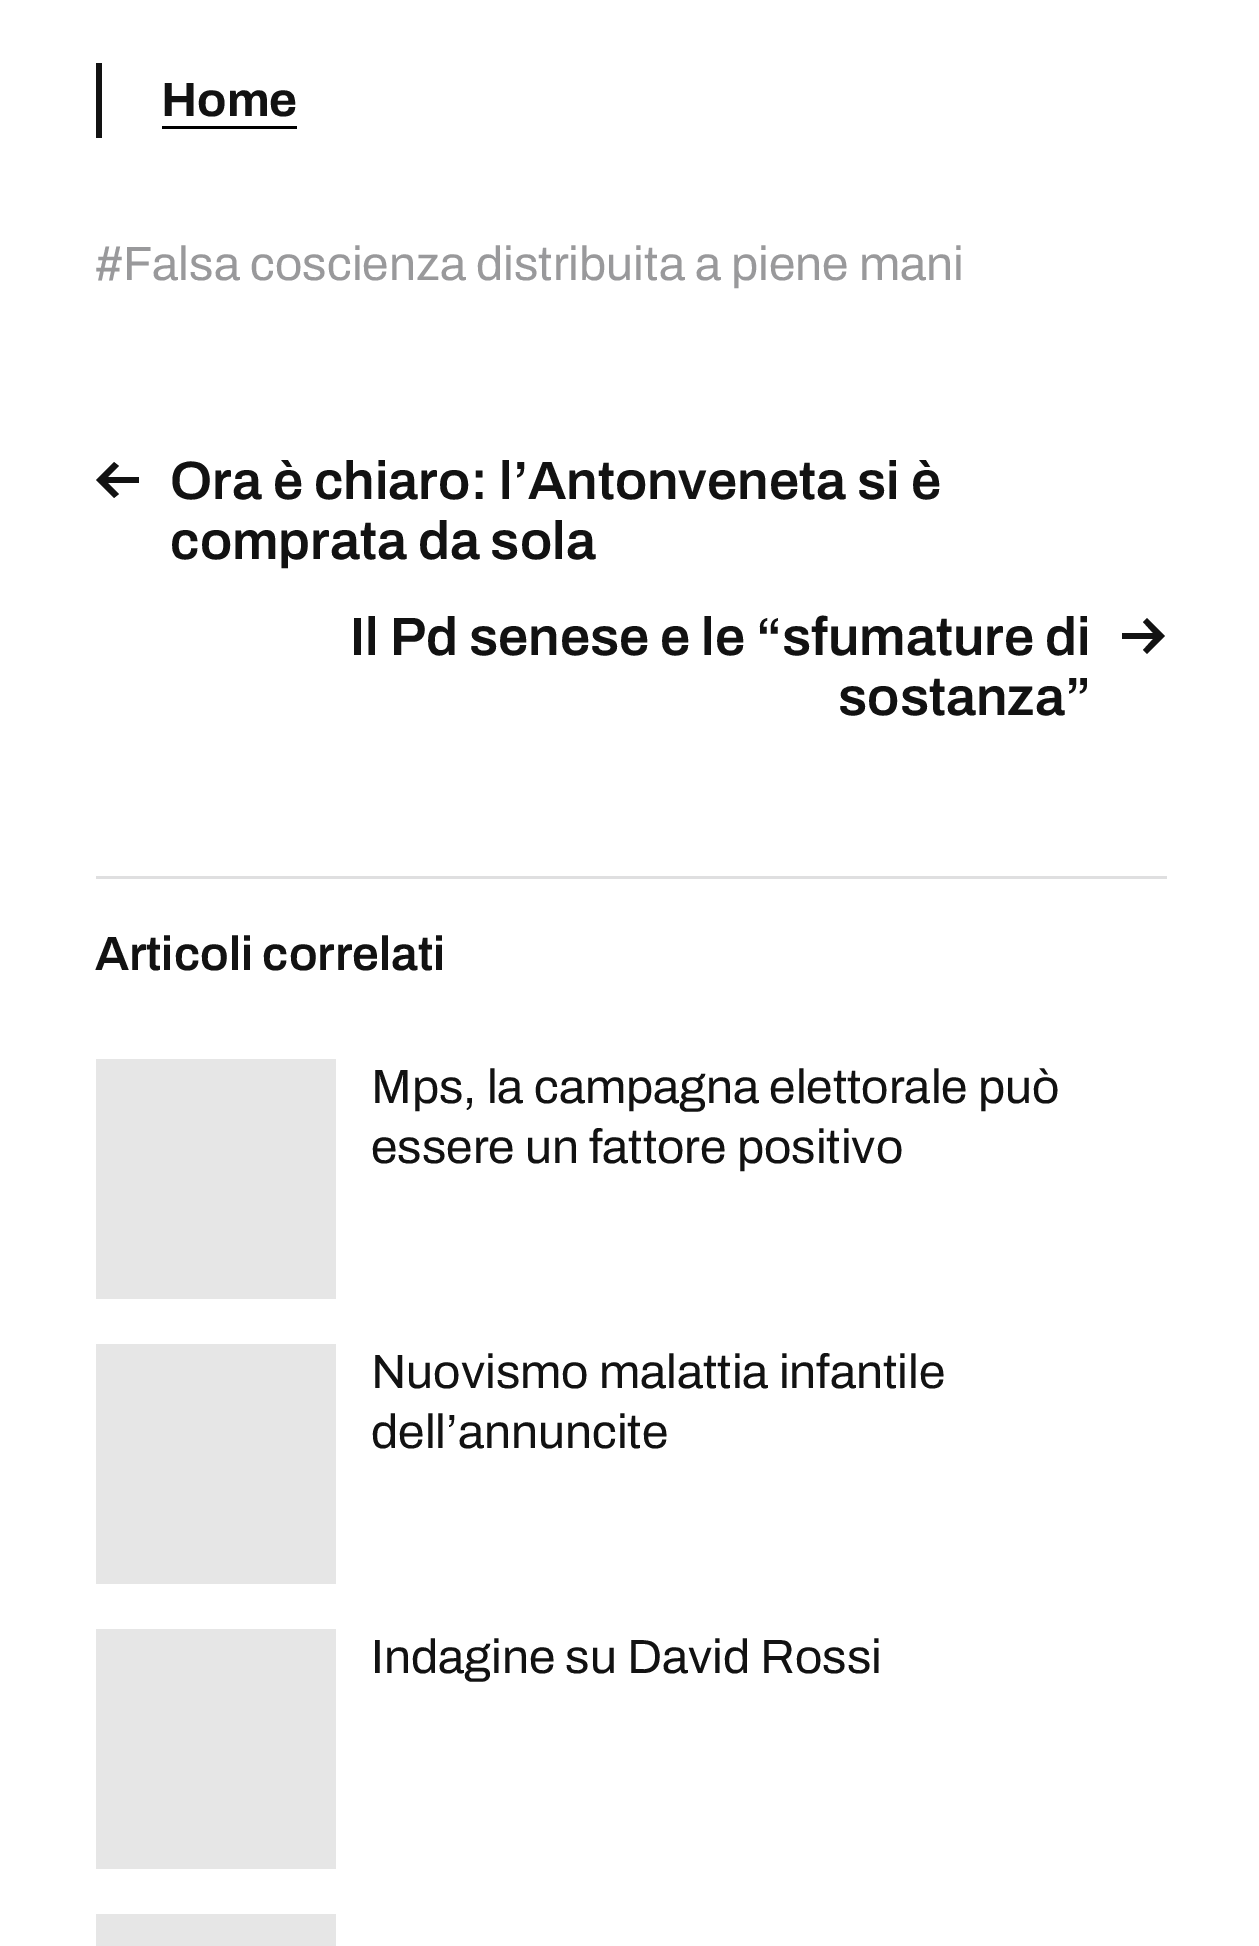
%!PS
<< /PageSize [1259 1946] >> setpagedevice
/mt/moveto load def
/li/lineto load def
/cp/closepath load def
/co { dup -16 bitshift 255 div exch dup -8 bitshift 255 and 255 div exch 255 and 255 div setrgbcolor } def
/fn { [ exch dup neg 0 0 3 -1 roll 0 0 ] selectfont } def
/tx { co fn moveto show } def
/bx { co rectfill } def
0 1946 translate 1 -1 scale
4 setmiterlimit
0 0 1259 1946 16#FFFFFF bx
96 63 6 75 16#121212 bx
162 126 135 3 16#000000 bx
16#121212 co
108 477 mt 139 477 li 139 483 li 108 483 li 119 494 li 114 498 li 96 480 li 114 462 li 119 466 li cp eofill
1153 639 mt 1122 639 li 1122 633 li 1153 633 li 1143 622 li 1147 618 li 1165 636 li 1147 654 li 1143 650 li cp eofill
96 876 1071 3 16#DFDFE0 bx
96 1059 240 240 16#E6E6E6 bx
96 1344 240 240 16#E6E6E6 bx
96 1629 240 240 16#E6E6E6 bx
96 1914 240 32 16#E6E6E6 bx
(Home) 161 116 /Archivo-Bold 48 16#121212 tx
(#Falsa coscienza distribuita a piene mani) 95 280 /Archivo-Regular 48 16#99999B tx
(Ora è chiaro: l’Antonveneta si è) 170 499 /Archivo-SemiBold 54 16#121212 tx
(comprata da sola) 170 559 /Archivo-SemiBold 54 16#121212 tx
(Il Pd senese e le “sfumature di) 350 655 /Archivo-SemiBold 54 16#121212 tx
(sostanza”) 838 715 /Archivo-SemiBold 54 16#121212 tx
(Articoli correlati) 95 970 /Archivo-SemiBold 48 16#121212 tx
(Mps, la campagna elettorale può) 371 1103 /Archivo-Regular 48 16#121212 tx
(essere un fattore positivo) 371 1163 /Archivo-Regular 48 16#121212 tx
(Nuovismo malattia infantile) 371 1388 /Archivo-Regular 48 16#121212 tx
(dell’annuncite) 371 1448 /Archivo-Regular 48 16#121212 tx
(Indagine su David Rossi) 371 1673 /Archivo-Regular 48 16#121212 tx
showpage
